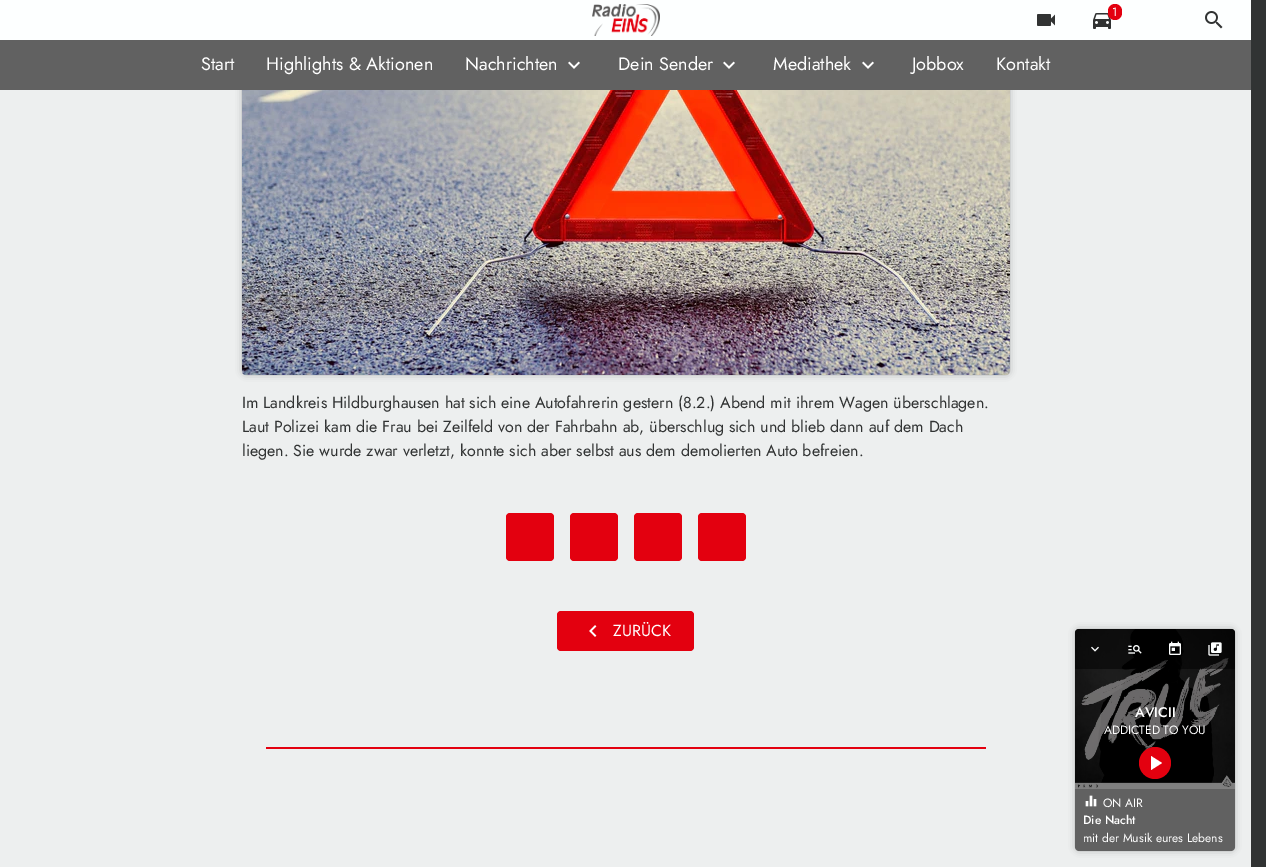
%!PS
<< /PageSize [1266 867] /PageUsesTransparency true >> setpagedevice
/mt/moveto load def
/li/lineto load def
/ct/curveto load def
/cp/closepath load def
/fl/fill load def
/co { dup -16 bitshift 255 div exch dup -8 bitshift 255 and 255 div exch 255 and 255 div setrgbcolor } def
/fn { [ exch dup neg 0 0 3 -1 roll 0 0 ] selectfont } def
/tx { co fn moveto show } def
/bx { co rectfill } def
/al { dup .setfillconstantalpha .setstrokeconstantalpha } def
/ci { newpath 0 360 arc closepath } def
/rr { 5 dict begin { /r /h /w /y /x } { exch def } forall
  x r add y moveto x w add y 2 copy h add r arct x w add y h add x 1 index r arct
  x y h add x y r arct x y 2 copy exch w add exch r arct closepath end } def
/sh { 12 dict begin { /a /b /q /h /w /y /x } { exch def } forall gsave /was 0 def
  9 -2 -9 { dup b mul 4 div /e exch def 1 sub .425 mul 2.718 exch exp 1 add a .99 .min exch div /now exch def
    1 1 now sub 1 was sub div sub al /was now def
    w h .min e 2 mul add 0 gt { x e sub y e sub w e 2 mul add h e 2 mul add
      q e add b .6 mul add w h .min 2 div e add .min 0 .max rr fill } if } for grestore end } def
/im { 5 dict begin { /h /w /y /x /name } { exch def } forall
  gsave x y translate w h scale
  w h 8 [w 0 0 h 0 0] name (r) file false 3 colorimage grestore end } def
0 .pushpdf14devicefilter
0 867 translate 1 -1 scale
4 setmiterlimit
0 0 1266 867 16#313333 bx
0 90 1251 777 16#EDEFEF bx
16#000000 co
244 -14 764 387 2 4 .4 sh
0 0 1251 40 16#FDFFFF bx
(media/1.raw) 592 4 68 32 im
(media/2.raw) 1093 13 18 16 im
16#E3000F co
1108 4 14 16 7 rr fl
(media/3.raw) 1037 14 18 12 im
(media/4.raw) 1205 11 18 18 im
0 40 1251 50 16#616161 bx
(media/5.raw) 568 61 12 8 im
(media/5.raw) 723 61 12 8 im
(media/5.raw) 862 61 12 8 im
(media/6.raw) 242 90 768 285 im
16#E3000F co
506 513 48 48 4 rr fl
570 513 48 48 4 rr fl
634 513 48 48 4 rr fl
698 513 48 48 4 rr fl
557 611 137 40 4 rr fl
(media/7.raw) 589 625 8 12 im
266 747 720 2 16#E3000F bx
16#000000 co
1077 631 156 218 2 4 .4 sh
(media/12.raw) 1075 629 160 160 im
0.5 al
1079 629 mt 1231 629 li 1233 629 1235 631 1235 633 ct 1235 789 li 1075 789 li 1075 633 li 1075 631 1077 629 1079 629 ct cp fl
1079 629 mt 1231 629 li 1233 629 1235 631 1235 633 ct 1235 669 li 1075 669 li 1075 633 li 1075 631 1077 629 1079 629 ct cp fl
1 al
(media/8.raw) 1091 646 8 6 im
(media/9.raw) 1128 645 14 9 im
(media/10.raw) 1169 641 12 14 im
(media/11.raw) 1208 642 14 14 im
16#E3000F co
1155 763 16 ci fl
16#FFFFFF co
1151 756 mt 1162 763 li 1151 770 li cp fl
16#616161 co
1075 789 mt 1235 789 li 1235 847 li 1235 849 1233 851 1231 851 ct 1079 851 li 1077 851 1075 849 1075 847 ct cp fl
(media/13.raw) 1085 795 12 12 im
(1) 1112 16 /Jost-Regular 12 16#FFFFFF tx
(Start) 201 70 /Jost-Regular 18 16#FFFFFF tx
(Highlights & Aktionen) 266 70 /Jost-Regular 18 16#FFFFFF tx
(Nachrichten) 465 70 /Jost-Regular 18 16#FFFFFF tx
(Dein Sender) 618 70 /Jost-Regular 18 16#FFFFFF tx
(Mediathek) 773 70 /Jost-Regular 18 16#FFFFFF tx
(Jobbox) 912 70 /Jost-Regular 18 16#FFFFFF tx
(Kontakt) 996 70 /Jost-Regular 18 16#FFFFFF tx
(Im Landkreis Hildburghausen hat sich eine Autofahrerin gestern \(8.2.\) Abend mit ihrem Wagen überschlagen.) 242 408 /Jost-Regular 16 16#313333 tx
(Laut Polizei kam die Frau bei Zeilfeld von der Fahrbahn ab, überschlug sich und blieb dann auf dem Dach) 242 432 /Jost-Regular 16 16#313333 tx
(liegen. Sie wurde zwar verletzt, konnte sich aber selbst aus dem demolierten Auto befreien.) 242 456 /Jost-Regular 16 16#313333 tx
(ZURÜCK) 613 636 /Jost-Regular 16 16#FFFFFF tx
(AVICII) 1135 717 /Jost-Medium 14 16#FFFFFF tx
(ADDICTED TO YOU) 1104 734 /Jost-Regular 12 16#FFFFFF tx
(ON AIR) 1103 807 /Jost-Regular 12 16#FFFFFF tx
(Die Nacht) 1083 824 /Jost-Medium 12 16#FFFFFF tx
(mit der Musik eures Lebens) 1083 842 /Jost-Regular 12 16#FFFFFF tx
.poppdf14devicefilter showpage
